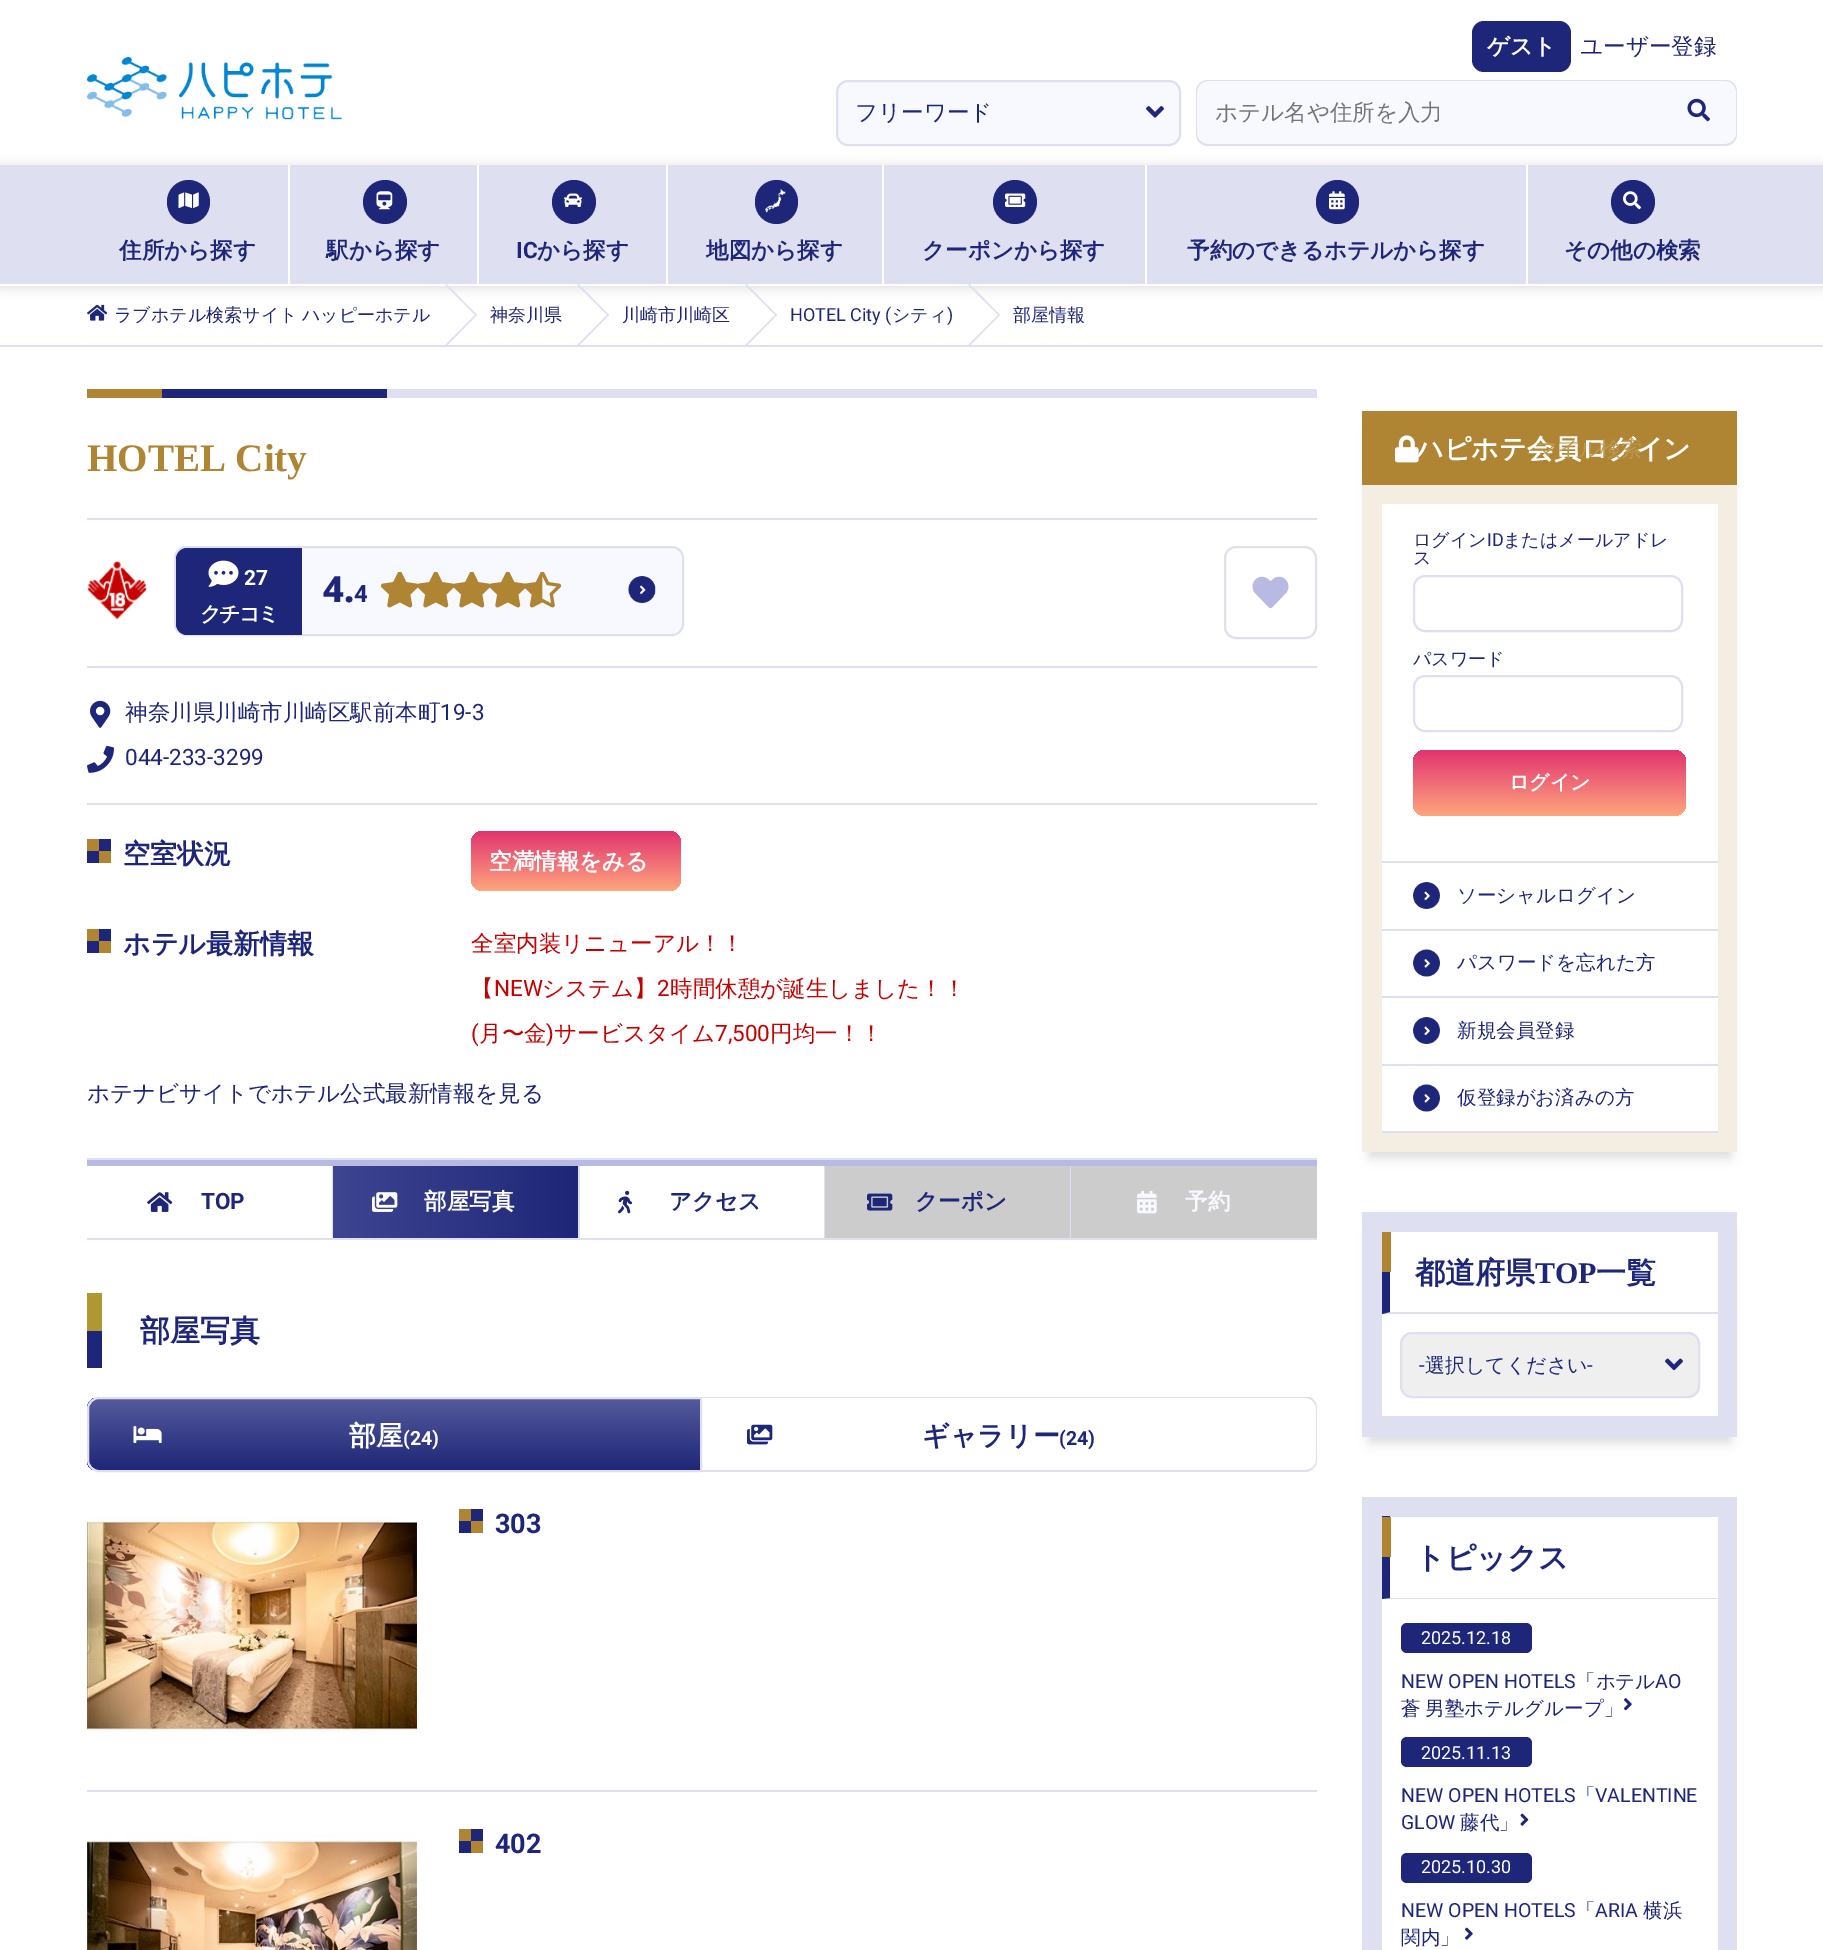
%!PS
<< /PageSize [1823 1950] /PageUsesTransparency true >> setpagedevice
/mt/moveto load def
/li/lineto load def
/ct/curveto load def
/cp/closepath load def
/fl/fill load def
/st/stroke load def
/gs/gsave load def
/gr/grestore load def
/lw/setlinewidth load def
/co { dup -16 bitshift 255 div exch dup -8 bitshift 255 and 255 div exch 255 and 255 div setrgbcolor } def
/fn { [ exch dup neg 0 0 3 -1 roll 0 0 ] selectfont } def
/tx { co fn moveto show } def
/bx { co rectfill } def
/al { dup .setfillconstantalpha .setstrokeconstantalpha } def
/ci { newpath 0 360 arc closepath } def
/rr { 5 dict begin { /r /h /w /y /x } { exch def } forall
  x r add y moveto x w add y 2 copy h add r arct x w add y h add x 1 index r arct
  x y h add x y r arct x y 2 copy exch w add exch r arct closepath end } def
/sh { 12 dict begin { /a /b /q /h /w /y /x } { exch def } forall gsave /was 0 def
  9 -2 -9 { dup b mul 4 div /e exch def 1 sub .425 mul 2.718 exch exp 1 add a .99 .min exch div /now exch def
    1 1 now sub 1 was sub div sub al /was now def
    w h .min e 2 mul add 0 gt { x e sub y e sub w e 2 mul add h e 2 mul add
      q e add b .6 mul add w h .min 2 div e add .min 0 .max rr fill } if } for grestore end } def
/im { 5 dict begin { /h /w /y /x /name } { exch def } forall
  gsave x y translate w h scale
  w h 8 [w 0 0 h 0 0] name (r) file false 3 colorimage grestore end } def
0 .pushpdf14devicefilter
0 1950 translate 1 -1 scale
4 setmiterlimit
0 0 1823 1950 16#FFFFFF bx
16#1E2679 co
1472 21 99 51 12 rr fl
(media/1.raw) 87 57 255 63 im
16#F8F9FF co
836 80 345 66 12 rr fl
(media/2.raw) 1146 106 18 12 im
16#DEDFF0 co
2 lw
837 81 343 64 11 rr st
16#F8F9FF co
1208 80 mt 1661 80 li 1661 146 li 1208 146 li 1201.5 146 1196 140.5 1196 134 ct 1196 92 li 1196 85.5 1201.5 80 1208 80 ct cp fl
16#DEDFF0 co
1208 80 mt 1660 80 li 1660 146 li 1208 146 li 1201 146 1196 140 1196 134 ct 1196 92 li 1196 85 1201 80 1208 80 ct cp 1208 81 mt 1660 81 li 1660 144 li 1208 144 li 1202 144 1197 139 1197 134 ct 1197 92 li 1197 86 1202 81 1208 81 ct cp eofill
16#F8F9FF co
1661 80 mt 1725 80 li 1731.5 80 1737 85.5 1737 92 ct 1737 134 li 1737 140.5 1731.5 146 1725 146 ct 1661 146 li cp fl
16#DEDFF0 co
1660 80 mt 1725 80 li 1732 80 1737 85 1737 92 ct 1737 134 li 1737 140 1732 146 1725 146 ct 1660 146 li cp 1660 81 mt 1725 81 li 1731 81 1736 86 1736 92 ct 1736 134 li 1736 139 1731 144 1725 144 ct 1660 144 li cp eofill
(media/3.raw) 1687 98 23 24 im
16#000000 co
0 167 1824 120 0 6 .15 sh
0 165 1823 119 16#DEDFF0 bx
0 284 1823 2 16#FFFFFF bx
288 165 2 119 16#FFFFFF bx
16#1E2679 co
167 180 43 44 21.5 rr fl
(media/4.raw) 178 192 21 17 im
477 165 2 119 16#FFFFFF bx
16#1E2679 co
385 202 22 ci fl
(media/5.raw) 376 191 17 19 im
666 165 2 119 16#FFFFFF bx
16#1E2679 co
574 202 22 ci fl
(media/6.raw) 564 193 18 14 im
882 165 2 119 16#FFFFFF bx
16#1E2679 co
755 180 43 44 21.5 rr fl
(media/7.raw) 765 189 21 24 im
1145 165 2 119 16#FFFFFF bx
16#1E2679 co
1015 202 22 ci fl
(media/8.raw) 1005 193 21 14 im
1526 165 2 119 16#FFFFFF bx
16#1E2679 co
1316 180 43 44 21.5 rr fl
(media/9.raw) 1329 191 16 19 im
1633 202 22 ci fl
(media/10.raw) 1623 191 18 19 im
0 345 1823 2 16#DEDFF0 bx
(media/11.raw) 87 304 21 17 im
445.5 283 mt 477 315 li 475 315 li 445.5 285.5 li cp fl
477 315 mt 445.5 347 li 445.5 344.5 li 475 315 li cp fl
577.5 283 mt 609 315 li 607 315 li 577.5 285.5 li cp fl
609 315 mt 577.5 347 li 577.5 344.5 li 607 315 li cp fl
745.5 283 mt 777 315 li 775 315 li 745.5 285.5 li cp fl
777 315 mt 745.5 347 li 745.5 344.5 li 775 315 li cp fl
968.5 283 mt 1000 315 li 998 315 li 968.5 285.5 li cp fl
1000 315 mt 968.5 347 li 968.5 344.5 li 998 315 li cp fl
387 389 930 9 16#DEDFF0 bx
87 389 75 9 16#AF8432 bx
162 389 225 9 16#1E2679 bx
87 518 1230 2 16#DEDFF0 bx
87 666 1230 2 16#DEDFF0 bx
(media/12.raw) 87 561 60 59 im
16#F8F9FF co
175 547 508 88 11 rr gs fl gr
16#DEDFF0 co
st
16#1E2679 co
187 548 mt 302 548 li 302 635 li 187 635 li 181 635 176 630 176 624 ct 176 559 li 176 553 181 548 187 548 ct cp fl
(media/13.raw) 208 560 31 27 im
(media/14.raw) 628 576 28 27 im
(media/15.raw) 381 572 37 36 im
(media/16.raw) 417 572 37 36 im
(media/16.raw) 453 572 37 36 im
(media/16.raw) 489 572 37 36 im
(media/17.raw) 524 572 38 36 im
16#DEDFF0 co
1225 547 91 91 11 rr st
(media/18.raw) 1252 576 37 33 im
87 803 1230 2 16#DEDFF0 bx
(media/19.raw) 90 700 21 28 im
(media/20.raw) 87 745 27 28 im
87 1158 1230 2 16#DEDFF0 bx
87 839 24 24 16#1E2679 bx
87 839 12 12 16#AF8432 bx
99 851 12 12 16#AF8432 bx
gs 471 831 210 60 12 rr clip newpath
<< /ShadingType 2 /ColorSpace /DeviceRGB /Coords [576 831 576 891] /Extend [true true] /Function << /FunctionType 2 /Domain [0 1] /C0 [.882 .204 .435] /C1 [1 .647 .494] /N 1 >> >> shfill gr
87 929 24 24 16#1E2679 bx
87 929 12 12 16#AF8432 bx
99 941 12 12 16#AF8432 bx
87 1160 1230 6 16#B8BAE3 bx
87 1238 1230 2 16#DEDFF0 bx
332 1166 1 72 16#DEDFF0 bx
(media/21.raw) 147 1192 26 20 im
gs 333 1166 mt 578 1166 li 578 1238 li 333 1238 li cp clip newpath
<< /ShadingType 2 /ColorSpace /DeviceRGB /Coords [333 1202 578 1202] /Extend [true true] /Function << /FunctionType 2 /Domain [0 1] /C0 [.243 .275 .573] /C1 [.118 .149 .471] /N 1 >> >> shfill gr
578 1166 2 72 16#DEDFF0 bx
(media/22.raw) 372 1192 26 20 im
824 1166 1 72 16#DEDFF0 bx
(media/23.raw) 618 1190 15 24 im
825 1166 245 72 16#CCCCCC bx
1070 1166 1 72 16#DEDFF0 bx
(media/24.raw) 867 1193 26 18 im
1071 1166 246 72 16#CCCCCC bx
(media/25.raw) 1137 1190 20 24 im
87 1331 15 37 16#1E2679 bx
87 1293 15 38 16#AF9732 bx
gs
99 1397 mt 702 1397 li 702 1472 li 99 1472 li 92.5 1472 87 1466.5 87 1460 ct 87 1409 li 87 1402.5 92.5 1397 99 1397 ct cp clip newpath
gs 87 1398 mt 700 1398 li 700 1470 li 87 1470 li cp clip newpath
<< /ShadingType 2 /ColorSpace /DeviceRGB /Coords [395 1398 395 1470] /Extend [true true] /Function << /FunctionType 2 /Domain [0 1] /C0 [.333 .357 .608] /C1 [.118 .149 .471] /N 1 >> >> shfill gr
gr
16#DEDFF0 co
99 1398 mt 701 1398 li 701 1471 li 99 1471 li 93 1471 88 1466 88 1460 ct 88 1409 li 88 1403 93 1398 99 1398 ct cp st
(media/26.raw) 133 1426 29 17 im
gs
87 1397 1230 75 rectclip
702 1396 mt 1305 1396 li 1312 1396 1317 1402 1317 1408 ct 1317 1460 li 1317 1466 1312 1472 1305 1472 ct 702 1472 li cp 702 1398 mt 1305 1398 li 1311 1398 1316 1403 1316 1408 ct 1316 1460 li 1316 1465 1311 1470 1305 1470 ct 702 1470 li cp eofill
gr
(media/27.raw) 747 1424 26 21 im
87 1790 1230 2 16#DEDFF0 bx
(media/28.raw) 87 1515 330 218 im
459 1509 24 24 16#1E2679 bx
459 1509 12 12 16#AF8432 bx
471 1521 12 12 16#AF8432 bx
(media/29.raw) 87 1834 330 116 im
459 1829 24 24 16#1E2679 bx
459 1829 12 12 16#AF8432 bx
471 1841 12 12 16#AF8432 bx
16#000000 co
1370 431 360 726 0 6 .15 sh
1362 485 375 667 16#F4EEE2 bx
1362 411 375 74 16#AF8432 bx
1382 504 336 357 16#FFFFFF bx
16#DEDFF0 co
1414 576 268 55 11 rr st
1414 676 268 55 11 rr st
gs 1413 750 273 66 12 rr clip newpath
<< /ShadingType 2 /ColorSpace /DeviceRGB /Coords [1550 750 1550 816] /Extend [true true] /Function << /FunctionType 2 /Domain [0 1] /C0 [.882 .204 .435] /C1 [1 .647 .494] /N 1 >> >> shfill gr
1382 863 336 268 16#FFFFFF bx
1382 861 336 2 16#DEDFF0 bx
(media/31.raw) 1413 882 27 27 im
1382 929 336 2 16#DEDFF0 bx
(media/32.raw) 1413 949 27 28 im
1382 996 336 2 16#DEDFF0 bx
(media/31.raw) 1413 1017 27 27 im
1382 1064 336 2 16#DEDFF0 bx
(media/32.raw) 1413 1084 27 28 im
1382 1131 336 2 16#DEDFF0 bx
16#000000 co
1370 1232 360 210 0 6 .15 sh
1362 1212 375 225 16#DEDFF0 bx
1382 1232 336 184 16#FFFFFF bx
16#DEDFF0 co
1718 1314 mt 1382 1314 li 1390 1312 li 1718 1312 li cp fl
16#1E2679 co
1382 1314 mt 1382 1232 li 1390 1232 li 1390 1312 li cp fl
1382 1232 9 40 16#AF8432 bx
16#EFEFEF co
1400 1332 300 66 12 rr fl
(media/33.raw) 1665 1358 18 13 im
16#DEDFF0 co
1401 1333 298 64 11 rr st
1362 1497 375 453 16#DEDFF0 bx
1382 1517 336 433 16#FFFFFF bx
16#DEDFF0 co
1718 1599 mt 1382 1599 li 1390 1598 li 1718 1598 li cp fl
16#1E2679 co
1382 1599 mt 1382 1516 li 1390 1516 li 1390 1598 li cp fl
1382 1517 9 40 16#AF8432 bx
16#1E2679 co
1401 1623 131 30 6 rr fl
(media/34.raw) 1624 1698 8 13 im
1401 1737 131 30 6 rr fl
(media/35.raw) 1520 1813 9 13 im
1401 1853 131 30 6 rr fl
(media/36.raw) 1465 1927 8 13 im
(ゲスト) 1487 54 /WenQuanYiZenHei-Bold 22.5 16#FFFFFF tx
(ユーザー登録) 1580 54 /WenQuanYiZenHei-Medium 22.5 16#1E2679 tx
(フリーワード) 855 120 /WenQuanYiZenHei-Medium 22.5 16#1E2679 tx
(ホテル名や住所を入力) 1215 120 /WenQuanYiZenHei-Medium 22.5 16#757575 tx
(住所から探す) 119 258 /WenQuanYiZenHei-Bold 22.5 16#1E2679 tx
(駅から探す) 326 258 /WenQuanYiZenHei-Bold 22.5 16#1E2679 tx
(IC) 516 258 /Roboto-Bold 22.5 16#1E2679 tx
(から探す) 537 258 /WenQuanYiZenHei-Bold 22.5 16#1E2679 tx
(地図から探す) 706 258 /WenQuanYiZenHei-Bold 22.5 16#1E2679 tx
(クーポンから探す) 922 258 /WenQuanYiZenHei-Bold 22.5 16#1E2679 tx
(予約のできるホテルから探す) 1187 258 /WenQuanYiZenHei-Bold 22.5 16#1E2679 tx
(その他の検索) 1564 258 /WenQuanYiZenHei-Bold 22.5 16#1E2679 tx
/WenQuanYiZenHei-Medium 18 fn
114 321 mt -1 0 32 (ラブホテル検索サイト ハッピーホテル) widthshow
(神奈川県) 490 321 /WenQuanYiZenHei-Medium 18 16#1E2679 tx
(川崎市川崎区) 622 321 /WenQuanYiZenHei-Medium 18 16#1E2679 tx
(HOTEL City \() 790 321 /Roboto-Regular 18 16#1E2679 tx
(シティ) 892 321 /WenQuanYiZenHei-Medium 18 16#1E2679 tx
(\)) 947 321 /Roboto-Regular 18 16#1E2679 tx
(部屋情報) 1013 321 /WenQuanYiZenHei-Medium 18 16#1E2679 tx
(HOTEL City) 87 471 /LiberationSerif-Bold 39 16#AF8432 tx
(27) 244 585 /Roboto-Bold 21 16#FFFFFF tx
/WenQuanYiZenHei-Bold 21 fn
200 621 mt -2 0 (クチコミ) ashow
(4.) 323 602 /NotoSans-ExtraBold 36 16#1E2679 tx
(4) 354 602 /Roboto-Bold 24 16#1E2679 tx
(神奈川県川崎市川崎区駅前本町) 125 720 /WenQuanYiZenHei-Medium 22.5 16#1E2679 tx
(19-3) 440 720 /Roboto-Regular 22.5 16#1E2679 tx
(044-233-3299) 125 765 /Roboto-Regular 22.5 16#1E2679 tx
(空室状況) 123 863 /WenQuanYiZenHei-Bold 27 16#1E2679 tx
(空満情報をみる) 489 869 /WenQuanYiZenHei-Bold 22.5 16#FFFFFF tx
(ホテル最新情報) 123 953 /WenQuanYiZenHei-Bold 27 16#1E2679 tx
(全室内装リニューアル！！) 471 951 /WenQuanYiZenHei-Medium 22.5 16#C60000 tx
(【) 471 996 /WenQuanYiZenHei-Medium 22.5 16#C60000 tx
(NEW) 494 996 /Roboto-Regular 22.5 16#C60000 tx
(システム】) 542 996 /WenQuanYiZenHei-Medium 22.5 16#C60000 tx
(2) 657 996 /Roboto-Regular 22.5 16#C60000 tx
(時間休憩が誕生しました！！) 670 996 /WenQuanYiZenHei-Medium 22.5 16#C60000 tx
(\() 471 1041 /Roboto-Regular 22.5 16#C60000 tx
(月〜金) 479 1041 /WenQuanYiZenHei-Medium 22.5 16#C60000 tx
(\)) 546 1041 /Roboto-Regular 22.5 16#C60000 tx
(サービスタイム) 554 1041 /WenQuanYiZenHei-Medium 22.5 16#C60000 tx
(7,500) 715 1041 /Roboto-Regular 22.5 16#C60000 tx
(円均一！！) 770 1041 /WenQuanYiZenHei-Medium 22.5 16#C60000 tx
(ホテナビサイトでホテル公式最新情報を見る) 87 1101 /WenQuanYiZenHei-Medium 22.5 16#1E2679 tx
(TOP) 201 1209 /Roboto-Bold 22.5 16#1E2679 tx
(部屋写真) 424 1209 /WenQuanYiZenHei-Bold 22.5 16#FFFFFF tx
(アクセス) 669 1209 /WenQuanYiZenHei-Bold 22.5 16#1E2679 tx
(クーポン) 915 1209 /WenQuanYiZenHei-Bold 22.5 16#1E2679 tx
(予約) 1185 1209 /WenQuanYiZenHei-Bold 22.5 16#F8F9FF tx
(部屋写真) 140 1341 /WenQuanYiZenHei-Bold 30 16#1E2679 tx
(部屋) 349 1445 /WenQuanYiZenHei-Bold 27 16#FFFFFF tx
(\(24\)) 403 1445 /Roboto-Bold 19.5 16#FFFFFF tx
(ギャラリー) 922 1445 /WenQuanYiZenHei-Bold 27 16#1E2679 tx
(\(24\)) 1059 1445 /Roboto-Bold 19.5 16#1E2679 tx
(303) 495 1533 /Roboto-Bold 27 16#1E2679 tx
(402) 495 1853 /Roboto-Bold 27 16#1E2679 tx
(ハピホテ会員ログイン) 1416 458 /WenQuanYiZenHei-Bold 27 16#FFFFFF tx
(マイル検索) 1536 456 /WenQuanYiZenHei-Medium 21 16#BC9853 tx
(media/30.raw) 1395 435 24 28 im
(ログイン) 1413 546 /WenQuanYiZenHei-Medium 18 16#1E2679 tx
(ID) 1487 546 /Roboto-Regular 18 16#1E2679 tx
(またはメールアドレ) 1503 546 /WenQuanYiZenHei-Medium 18 16#1E2679 tx
(ス) 1413 564 /WenQuanYiZenHei-Medium 18 16#1E2679 tx
(パスワード) 1413 665 /WenQuanYiZenHei-Medium 18 16#1E2679 tx
(ログイン) 1509 789 /WenQuanYiZenHei-Bold 20 16#FFFFFF tx
(ソーシャルログイン) 1457 902 /WenQuanYiZenHei-Medium 19.5 16#1E2679 tx
(パスワードを忘れた方) 1457 969 /WenQuanYiZenHei-Medium 19.5 16#1E2679 tx
(新規会員登録) 1457 1037 /WenQuanYiZenHei-Medium 19.5 16#1E2679 tx
(仮登録がお済みの方) 1457 1104 /WenQuanYiZenHei-Medium 19.5 16#1E2679 tx
(都道府県) 1415 1283 /WenQuanYiZenHei-Bold 30 16#1E2679 tx
(TOP) 1535 1283 /LiberationSerif-Bold 30 16#1E2679 tx
(一覧) 1596 1283 /WenQuanYiZenHei-Bold 30 16#1E2679 tx
(-) 1419 1372 /Roboto-Regular 20 16#1E2679 tx
(選択してください) 1425 1372 /WenQuanYiZenHei-Medium 20 16#1E2679 tx
(-) 1587 1372 /Roboto-Regular 20 16#1E2679 tx
(トピックス) 1415 1568 /WenQuanYiZenHei-Bold 30 16#1E2679 tx
(2025.12.18) 1421 1644 /Roboto-Regular 18 16#FFFFFF tx
(NEW OPEN HOTELS) 1401 1688 /Roboto-Regular 19.5 16#1E2679 tx
(「ホテル) 1576 1688 /WenQuanYiZenHei-Medium 19.5 16#1E2679 tx
(AO) 1655 1688 /Roboto-Regular 19.5 16#1E2679 tx
/WenQuanYiZenHei-Medium 19.5 fn
1401 1715 mt -1 0 32 (蒼 男塾ホテルグループ」) widthshow
(2025.11.13) 1421 1759 /Roboto-Regular 18 16#FFFFFF tx
(NEW OPEN HOTELS) 1401 1802 /Roboto-Regular 19.5 16#1E2679 tx
(「) 1576 1802 /WenQuanYiZenHei-Medium 19.5 16#1E2679 tx
(VALENTINE) 1595 1802 /Roboto-Regular 19.5 16#1E2679 tx
(GLOW) 1401 1829 /Roboto-Regular 19.5 16#1E2679 tx
(藤代」) 1460 1829 /WenQuanYiZenHei-Medium 19.5 16#1E2679 tx
(2025.10.30) 1421 1873 /Roboto-Regular 18 16#FFFFFF tx
(NEW OPEN HOTELS) 1401 1917 /Roboto-Regular 19.5 16#1E2679 tx
(「) 1576 1917 /WenQuanYiZenHei-Medium 19.5 16#1E2679 tx
(ARIA) 1595 1917 /Roboto-Regular 19.5 16#1E2679 tx
(横浜) 1643 1917 /WenQuanYiZenHei-Medium 19.5 16#1E2679 tx
(関内」) 1401 1944 /WenQuanYiZenHei-Medium 19.5 16#1E2679 tx
.poppdf14devicefilter showpage
